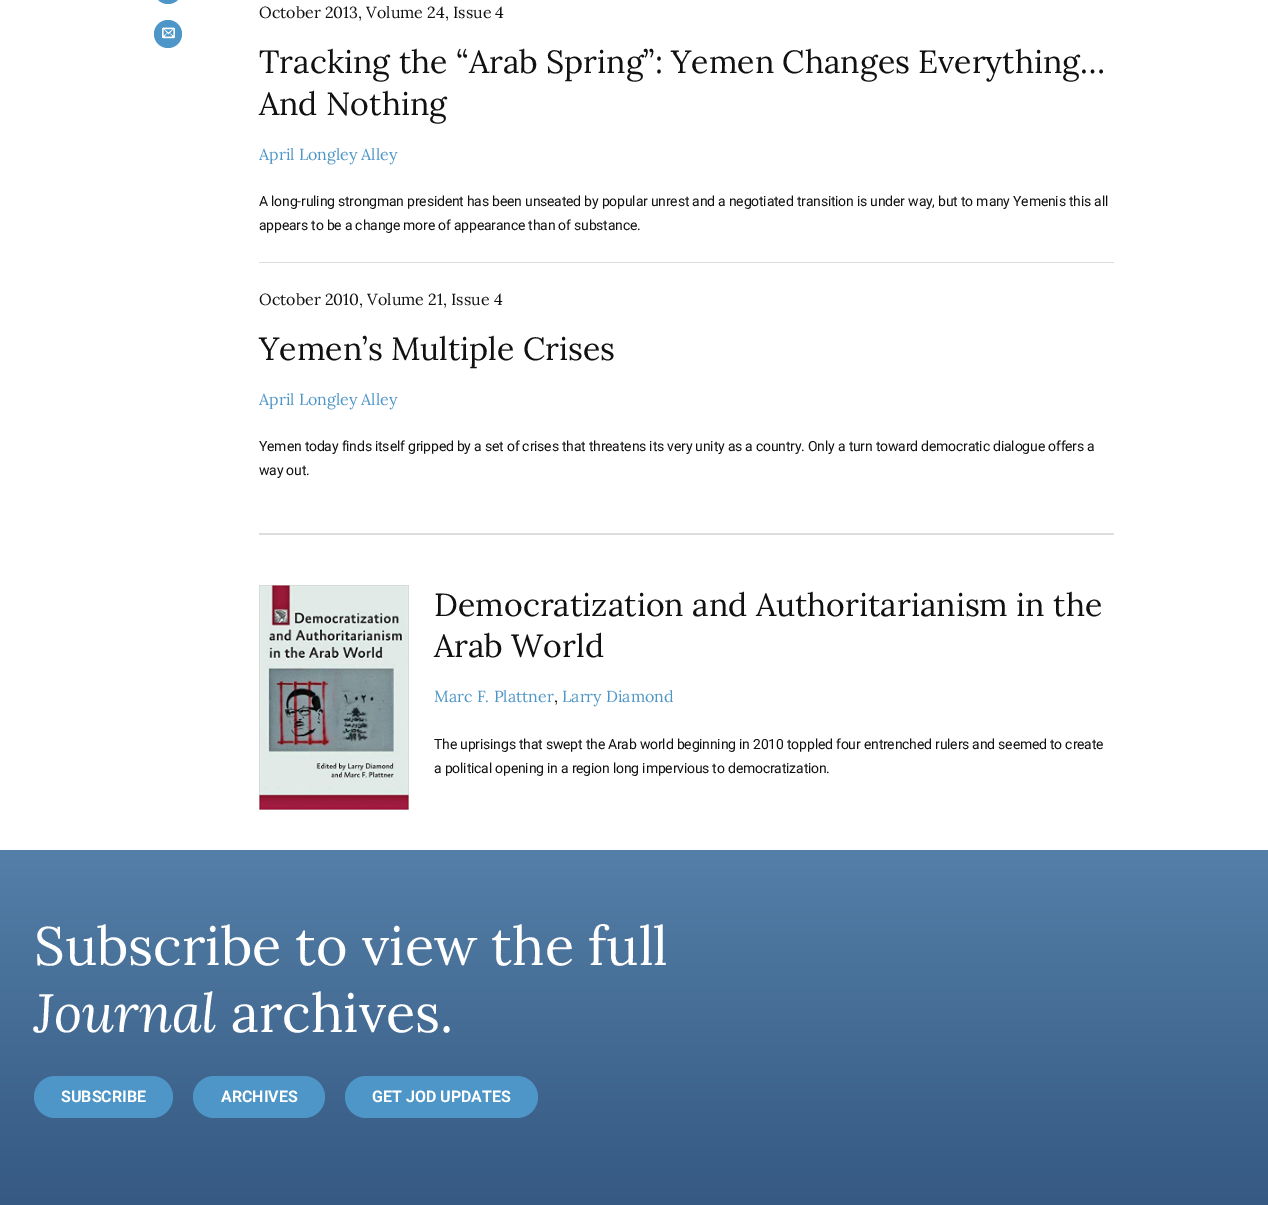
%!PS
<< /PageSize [1268 1205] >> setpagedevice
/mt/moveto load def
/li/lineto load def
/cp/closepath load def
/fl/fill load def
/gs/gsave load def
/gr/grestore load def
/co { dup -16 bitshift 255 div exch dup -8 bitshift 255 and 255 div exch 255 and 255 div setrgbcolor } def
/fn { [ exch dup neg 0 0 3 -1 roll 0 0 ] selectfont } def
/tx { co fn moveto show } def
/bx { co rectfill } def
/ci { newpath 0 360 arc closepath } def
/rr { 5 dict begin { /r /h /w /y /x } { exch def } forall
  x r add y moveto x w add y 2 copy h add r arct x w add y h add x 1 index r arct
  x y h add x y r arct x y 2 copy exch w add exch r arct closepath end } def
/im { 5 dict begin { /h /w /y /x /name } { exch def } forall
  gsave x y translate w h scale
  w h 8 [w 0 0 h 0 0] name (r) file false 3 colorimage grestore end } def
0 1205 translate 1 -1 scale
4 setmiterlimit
0 0 1268 1205 16#FFFFFF bx
16#4E96C8 co
154 -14 28 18 14 rr fl
168 34 14 ci fl
(media/1.raw) 162 27 13 12 im
259 262 855 1 16#DDDDDD bx
259 533 855 2 16#DDDDDD bx
(media/2.raw) 259 585 150 225 im
gs 0 850 mt 1268 850 li 1268 1205 li 0 1205 li cp clip newpath
<< /ShadingType 2 /ColorSpace /DeviceRGB /Coords [634 850 634 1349] /Extend [true true] /Function << /FunctionType 2 /Domain [0 1] /C0 [.329 .498 .659] /C1 [.161 .29 .451] /N 1 >> >> shfill gr
16#4E96C8 co
34 1076 139 42 21 rr fl
193 1076 132 42 21 rr fl
345 1076 193 42 21 rr fl
(October 2013, Volume 24, Issue 4) 259 18 /Lora-Regular 16 16#111111 tx
(Tracking the “Arab Spring”: Yemen Changes Everything…) 259 73 /Lora-Regular 32 16#111111 tx
(And Nothing) 259 115 /Lora-Regular 32 16#111111 tx
(April Longley Alley) 259 160 /Lora-Regular 16 16#4E96C8 tx
/Roboto-Regular 14 fn
16#111111 co
259 206 mt -.2 0 (A long-ruling strongman president has been unseated by popular unrest and a negotiated transition is under way, but to many Yemenis this all) ashow
259 230 mt -.2 0 (appears to be a change more of appearance than of substance.) ashow
(October 2010, Volume 21, Issue 4) 259 305 /Lora-Regular 16 16#111111 tx
(Yemen’s Multiple Crises) 259 360 /Lora-Regular 32 16#111111 tx
(April Longley Alley) 259 405 /Lora-Regular 16 16#4E96C8 tx
/Roboto-Regular 14 fn
16#111111 co
259 451 mt -.2 0 (Yemen today finds itself gripped by a set of crises that threatens its very unity as a country. Only a turn toward democratic dialogue offers a) ashow
259 475 mt -.2 0 (way out.) ashow
(Democratization and Authoritarianism in the) 434 616 /Lora-Regular 32 16#111111 tx
(Arab World) 434 657 /Lora-Regular 32 16#111111 tx
(Marc F. Plattner) 434 702 /Lora-Regular 16 16#4E96C8 tx
(,) 554 702 /Lora-Regular 16 16#111111 tx
(Larry Diamond) 562 702 /Lora-Regular 16 16#4E96C8 tx
/Roboto-Regular 14 fn
16#111111 co
434 749 mt -.2 0 (The uprisings that swept the Arab world beginning in 2010 toppled four entrenched rulers and seemed to create) ashow
434 773 mt -.2 0 (a political opening in a region long impervious to democratization.) ashow
(Subscribe to view the full) 34 965 /Lora-Regular 54 16#FFFFFF tx
(Journal) 34 1032 /Lora-Italic 54 16#FFFFFF tx
(archives.) 231 1032 /Lora-Regular 54 16#FFFFFF tx
(SUBSCRIBE) 61 1102 /Roboto-Bold 16 16#FFFFFF tx
(ARCHIVES) 221 1102 /Roboto-Bold 16 16#FFFFFF tx
(GET JOD UPDATES) 372 1102 /Roboto-Bold 16 16#FFFFFF tx
showpage
